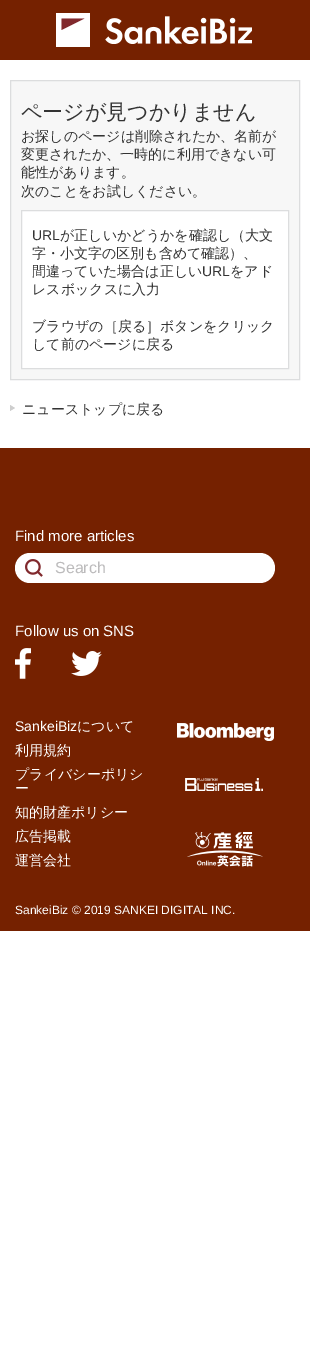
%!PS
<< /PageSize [310 1360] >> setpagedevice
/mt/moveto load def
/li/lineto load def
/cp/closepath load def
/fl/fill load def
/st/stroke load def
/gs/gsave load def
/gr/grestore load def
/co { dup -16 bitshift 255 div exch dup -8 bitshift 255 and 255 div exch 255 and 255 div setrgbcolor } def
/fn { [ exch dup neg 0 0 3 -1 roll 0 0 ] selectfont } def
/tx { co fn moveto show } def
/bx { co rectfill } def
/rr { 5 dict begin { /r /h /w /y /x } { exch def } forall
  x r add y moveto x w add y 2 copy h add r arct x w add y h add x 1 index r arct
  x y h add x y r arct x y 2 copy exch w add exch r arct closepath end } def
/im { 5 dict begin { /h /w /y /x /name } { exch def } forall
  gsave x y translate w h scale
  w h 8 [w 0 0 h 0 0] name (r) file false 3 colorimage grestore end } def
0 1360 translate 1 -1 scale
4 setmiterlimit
0 0 310 1360 16#FFFFFF bx
0 0 310 60 16#752100 bx
56 13 34 34 16#FFFFFF bx
16#81292D co
61.5 18.5 mt 84.5 18.5 li 61.5 30 li fl
(media/1.raw) 105 16 147 28 im
16#F7F7F7 co
10.5 80.5 mt 299.5 80.5 li 299.5 379.5 li 10.5 379.5 li cp gs fl gr
16#DCDDDE co
st
16#FFFFFF co
21.5 210.5 mt 288.5 210.5 li 288.5 368.5 li 21.5 368.5 li cp gs fl gr
16#DCDDDE co
st
(media/2.raw) 10 405 5 6 im
0 448 310 483 16#752100 bx
16#FFFFFF co
15 553 260 30 15 rr fl
(media/3.raw) 25 559 18 18 im
(media/4.raw) 15 648 16 31 im
(media/5.raw) 71 651 31 25 im
(media/6.raw) 177 723 97 18 im
(media/7.raw) 185 778 78 13 im
(media/8.raw) 187 832 76 35 im
(ページが見つかりません) 21 119 /WenQuanYiZenHei-Medium 21 16#333333 tx
(お探しのページは削除されたか、名前が) 21 141 /WenQuanYiZenHei-Medium 14 16#333333 tx
(変更されたか、一時的に利用できない可) 21 159 /WenQuanYiZenHei-Medium 14 16#333333 tx
(能性があります。) 21 177 /WenQuanYiZenHei-Medium 14 16#333333 tx
(次のことをお試しください。) 21 196 /WenQuanYiZenHei-Medium 14 16#333333 tx
(URL) 32 240 /LiberationSans-Regular 14 16#333333 tx
(が正しいかどうかを確認し（大文) 60 240 /WenQuanYiZenHei-Medium 14 16#333333 tx
(字・小文字の区別も含めて確認）、) 32 258 /WenQuanYiZenHei-Medium 14 16#333333 tx
(間違っていた場合は正しい) 32 276 /WenQuanYiZenHei-Medium 14 16#333333 tx
(URL) 202 276 /LiberationSans-Regular 14 16#333333 tx
(をアド) 230 276 /WenQuanYiZenHei-Medium 14 16#333333 tx
(レスボックスに入力) 32 294 /WenQuanYiZenHei-Medium 14 16#333333 tx
(ブラウザの［戻る］ボタンをクリック) 32 331 /WenQuanYiZenHei-Medium 14 16#333333 tx
(して前のページに戻る) 32 349 /WenQuanYiZenHei-Medium 14 16#333333 tx
(ニューストップに戻る) 22 414 /WenQuanYiZenHei-Medium 14 16#333333 tx
(Find more articles) 15 541 /LiberationSans-Regular 15 16#FFFFFF tx
(Search) 55 573 /LiberationSans-Regular 16 16#BCBBBC tx
(Follow us on SNS) 15 636 /LiberationSans-Regular 15 16#FFFFFF tx
(SankeiBiz) 15 731 /LiberationSans-Regular 14 16#FFFFFF tx
(について) 77 731 /WenQuanYiZenHei-Medium 14 16#FFFFFF tx
(利用規約) 15 755 /WenQuanYiZenHei-Medium 14 16#FFFFFF tx
(プライバシーポリシ) 15 779 /WenQuanYiZenHei-Medium 14 16#FFFFFF tx
(ー) 15 793 /WenQuanYiZenHei-Medium 14 16#FFFFFF tx
(知的財産ポリシー) 15 817 /WenQuanYiZenHei-Medium 14 16#FFFFFF tx
(広告掲載) 15 841 /WenQuanYiZenHei-Medium 14 16#FFFFFF tx
(運営会社) 15 865 /WenQuanYiZenHei-Medium 14 16#FFFFFF tx
(SankeiBiz © 2019 SANKEI DIGITAL INC.) 15 914 /LiberationSans-Regular 12 16#FFFFFF tx
showpage
